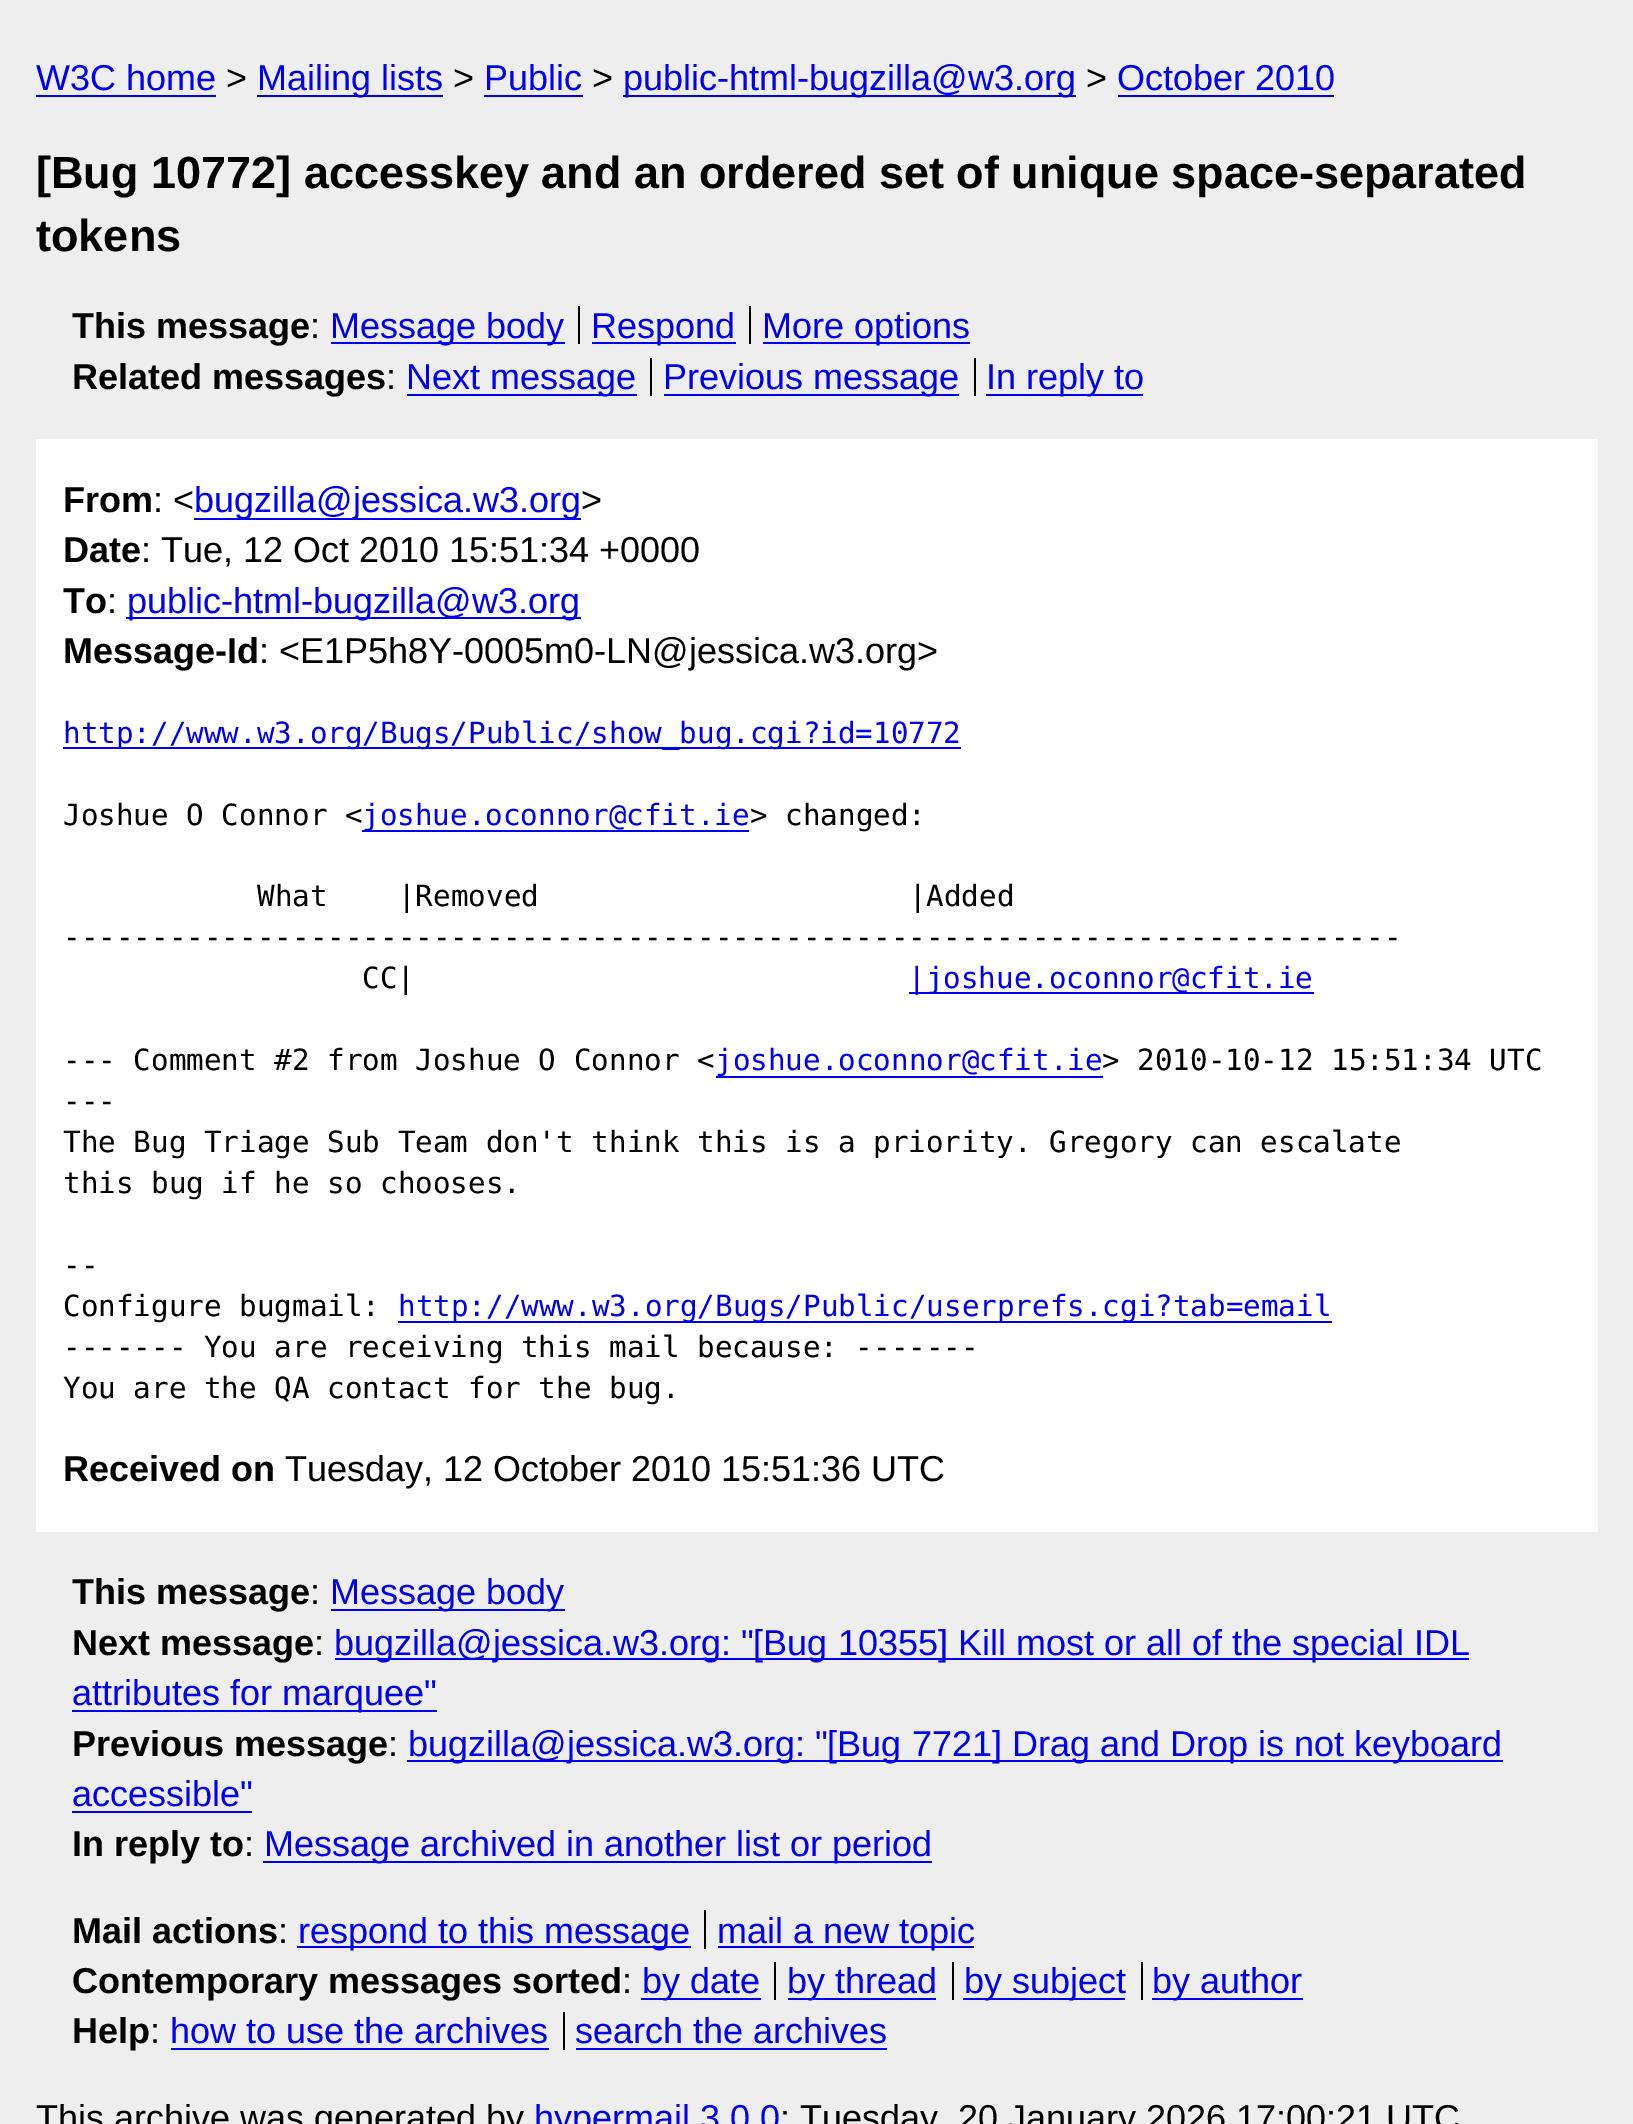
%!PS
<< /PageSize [1633 2124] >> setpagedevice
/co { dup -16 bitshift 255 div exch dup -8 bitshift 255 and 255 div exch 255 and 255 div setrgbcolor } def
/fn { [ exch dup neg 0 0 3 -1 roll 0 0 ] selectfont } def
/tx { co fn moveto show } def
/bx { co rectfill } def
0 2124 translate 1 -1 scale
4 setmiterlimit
0 0 1633 2124 16#EEEEEE bx
36 95 180 2 16#0000EE bx
257 95 186 2 16#0000EE bx
484 95 99 2 16#0000EE bx
623 95 453 2 16#0000EE bx
1118 95 216 2 16#0000EE bx
578 306 2 38 16#000000 bx
331 342 234 2 16#0000EE bx
592 342 144 2 16#0000EE bx
749 306 2 38 16#000000 bx
763 342 207 2 16#0000EE bx
407 394 230 2 16#0000EE bx
650 358 2 38 16#000000 bx
664 394 295 2 16#0000EE bx
974 358 2 38 16#000000 bx
986 394 157 2 16#0000EE bx
36 439 1562 1093 16#FFFFFF bx
194 518 387 2 16#0000EE bx
126 617 455 2 16#0000EE bx
63 747 898 2 16#0000EE bx
362 830 387 2 16#0000EE bx
909 992 405 2 16#0000EE bx
716 1076 387 2 16#0000EE bx
398 1321 934 2 16#0000EE bx
331 1609 234 2 16#0000EE bx
335 1658 1134 2 16#0000EE bx
72 1710 365 2 16#0000EE bx
407 1760 1096 2 16#0000EE bx
72 1811 180 2 16#0000EE bx
263 1861 669 2 16#0000EE bx
297 1946 394 2 16#0000EE bx
704 1910 2 39 16#000000 bx
718 1946 256 2 16#0000EE bx
641 1998 120 2 16#0000EE bx
774 1962 2 38 16#000000 bx
788 1998 148 2 16#0000EE bx
952 1962 2 38 16#000000 bx
963 1998 162 2 16#0000EE bx
1141 1962 2 38 16#000000 bx
1152 1998 151 2 16#0000EE bx
171 2048 378 2 16#0000EE bx
563 2012 2 38 16#000000 bx
576 2048 311 2 16#0000EE bx
(W3C home) 36 90 /LiberationSans-Regular 36 16#0000EE tx
(>) 226 90 /LiberationSans-Regular 36 16#000000 tx
(Mailing lists) 257 90 /LiberationSans-Regular 36 16#0000EE tx
(>) 453 90 /LiberationSans-Regular 36 16#000000 tx
(Public) 484 90 /LiberationSans-Regular 36 16#0000EE tx
(>) 592 90 /LiberationSans-Regular 36 16#000000 tx
(public-html-bugzilla@w3.org) 623 90 /LiberationSans-Regular 36 16#0000EE tx
(>) 1086 90 /LiberationSans-Regular 36 16#000000 tx
(October 2010) 1117 90 /LiberationSans-Regular 36 16#0000EE tx
([Bug 10772] accesskey and an ordered set of unique space-separated) 36 188 /LiberationSans-Bold 45 16#000000 tx
(tokens) 36 251 /LiberationSans-Bold 45 16#000000 tx
(This message) 72 338 /LiberationSans-Bold 36 16#000000 tx
(:) 310 338 /LiberationSans-Regular 36 16#000000 tx
(Message body) 330 338 /LiberationSans-Regular 36 16#0000EE tx
(Respond) 591 338 /LiberationSans-Regular 36 16#0000EE tx
(More options) 762 338 /LiberationSans-Regular 36 16#0000EE tx
(Related messages) 72 389 /LiberationSans-Bold 36 16#000000 tx
(:) 386 389 /LiberationSans-Regular 36 16#000000 tx
(Next message) 406 389 /LiberationSans-Regular 36 16#0000EE tx
(Previous message) 663 389 /LiberationSans-Regular 36 16#0000EE tx
(In reply to) 986 389 /LiberationSans-Regular 36 16#0000EE tx
(From) 63 512 /LiberationSans-Bold 36 16#000000 tx
(: <) 153 512 /LiberationSans-Regular 36 16#000000 tx
(bugzilla@jessica.w3.org) 194 512 /LiberationSans-Regular 36 16#0000EE tx
(>) 581 512 /LiberationSans-Regular 36 16#000000 tx
(Date) 63 562 /LiberationSans-Bold 36 16#000000 tx
(: Tue, 12 Oct 2010 15:51:34 +0000) 141 562 /LiberationSans-Regular 36 16#000000 tx
(To) 63 613 /LiberationSans-Bold 36 16#000000 tx
(:) 107 613 /LiberationSans-Regular 36 16#000000 tx
(public-html-bugzilla@w3.org) 127 613 /LiberationSans-Regular 36 16#0000EE tx
(Message-Id) 63 663 /LiberationSans-Bold 36 16#000000 tx
(: <E1P5h8Y-0005m0-LN@jessica.w3.org>) 259 663 /LiberationSans-Regular 36 16#000000 tx
(http://www.w3.org/Bugs/Public/show_bug.cgi?id=10772) 63 743 /DejaVuSansMono-Regular 29.25 16#0000EE tx
(Joshue O Connor <) 63 825 /DejaVuSansMono-Regular 29.25 16#000000 tx
(joshue.oconnor@cfit.ie) 362 825 /DejaVuSansMono-Regular 29.25 16#0000EE tx
(> changed:) 750 825 /DejaVuSansMono-Regular 29.25 16#000000 tx
(What    |Removed                     |Added) 257 906 /DejaVuSansMono-Regular 29.25 16#000000 tx
(----------------------------------------------------------------------------) 63 947 /DejaVuSansMono-Regular 29.25 16#000000 tx
(CC|) 362 988 /DejaVuSansMono-Regular 29.25 16#000000 tx
(|joshue.oconnor@cfit.ie) 908 988 /DejaVuSansMono-Regular 29.25 16#0000EE tx
(--- Comment #2 from Joshue O Connor <) 63 1070 /DejaVuSansMono-Regular 29.25 16#000000 tx
(joshue.oconnor@cfit.ie) 715 1070 /DejaVuSansMono-Regular 29.25 16#0000EE tx
(> 2010-10-12 15:51:34 UTC) 1102 1070 /DejaVuSansMono-Regular 29.25 16#000000 tx
(---) 63 1111 /DejaVuSansMono-Regular 29.25 16#000000 tx
(The Bug Triage Sub Team don't think this is a priority. Gregory can escalate) 63 1152 /DejaVuSansMono-Regular 29.25 16#000000 tx
(this bug if he so chooses.) 63 1193 /DejaVuSansMono-Regular 29.25 16#000000 tx
(--) 63 1275 /DejaVuSansMono-Regular 29.25 16#000000 tx
(Configure bugmail:) 63 1316 /DejaVuSansMono-Regular 29.25 16#000000 tx
(http://www.w3.org/Bugs/Public/userprefs.cgi?tab=email) 398 1316 /DejaVuSansMono-Regular 29.25 16#0000EE tx
(------- You are receiving this mail because: -------) 63 1357 /DejaVuSansMono-Regular 29.25 16#000000 tx
(You are the QA contact for the bug.) 63 1398 /DejaVuSansMono-Regular 29.25 16#000000 tx
(Received on) 63 1481 /LiberationSans-Bold 36 16#000000 tx
(Tuesday, 12 October 2010 15:51:36 UTC) 285 1481 /LiberationSans-Regular 36 16#000000 tx
(This message) 72 1604 /LiberationSans-Bold 36 16#000000 tx
(:) 310 1604 /LiberationSans-Regular 36 16#000000 tx
(Message body) 330 1604 /LiberationSans-Regular 36 16#0000EE tx
(Next message) 72 1655 /LiberationSans-Bold 36 16#000000 tx
(:) 314 1655 /LiberationSans-Regular 36 16#000000 tx
(bugzilla@jessica.w3.org: "[Bug 10355] Kill most or all of the special IDL) 334 1655 /LiberationSans-Regular 36 16#0000EE tx
(attributes for marquee") 72 1705 /LiberationSans-Regular 36 16#0000EE tx
(Previous message) 72 1756 /LiberationSans-Bold 36 16#000000 tx
(:) 388 1756 /LiberationSans-Regular 36 16#000000 tx
(bugzilla@jessica.w3.org: "[Bug 7721] Drag and Drop is not keyboard) 408 1756 /LiberationSans-Regular 36 16#0000EE tx
(accessible") 72 1806 /LiberationSans-Regular 36 16#0000EE tx
(In reply to) 72 1856 /LiberationSans-Bold 36 16#000000 tx
(:) 244 1856 /LiberationSans-Regular 36 16#000000 tx
(Message archived in another list or period) 264 1856 /LiberationSans-Regular 36 16#0000EE tx
(Mail actions) 72 1943 /LiberationSans-Bold 36 16#000000 tx
(:) 278 1943 /LiberationSans-Regular 36 16#000000 tx
(respond to this message) 298 1943 /LiberationSans-Regular 36 16#0000EE tx
(mail a new topic) 717 1943 /LiberationSans-Regular 36 16#0000EE tx
(Contemporary messages sorted) 72 1993 /LiberationSans-Bold 36 16#000000 tx
(:) 622 1993 /LiberationSans-Regular 36 16#000000 tx
(by date) 642 1993 /LiberationSans-Regular 36 16#0000EE tx
(by thread) 787 1993 /LiberationSans-Regular 36 16#0000EE tx
(by subject) 964 1993 /LiberationSans-Regular 36 16#0000EE tx
(by author) 1152 1993 /LiberationSans-Regular 36 16#0000EE tx
(Help) 72 2043 /LiberationSans-Bold 36 16#000000 tx
(:) 150 2043 /LiberationSans-Regular 36 16#000000 tx
(how to use the archives) 170 2043 /LiberationSans-Regular 36 16#0000EE tx
(search the archives) 575 2043 /LiberationSans-Regular 36 16#0000EE tx
(This archive was generated by) 36 2130 /LiberationSans-Regular 36 16#000000 tx
(hypermail 3.0.0) 534 2130 /LiberationSans-Regular 36 16#0000EE tx
(: Tuesday, 20 January 2026 17:00:21 UTC) 780 2130 /LiberationSans-Regular 36 16#000000 tx
showpage
